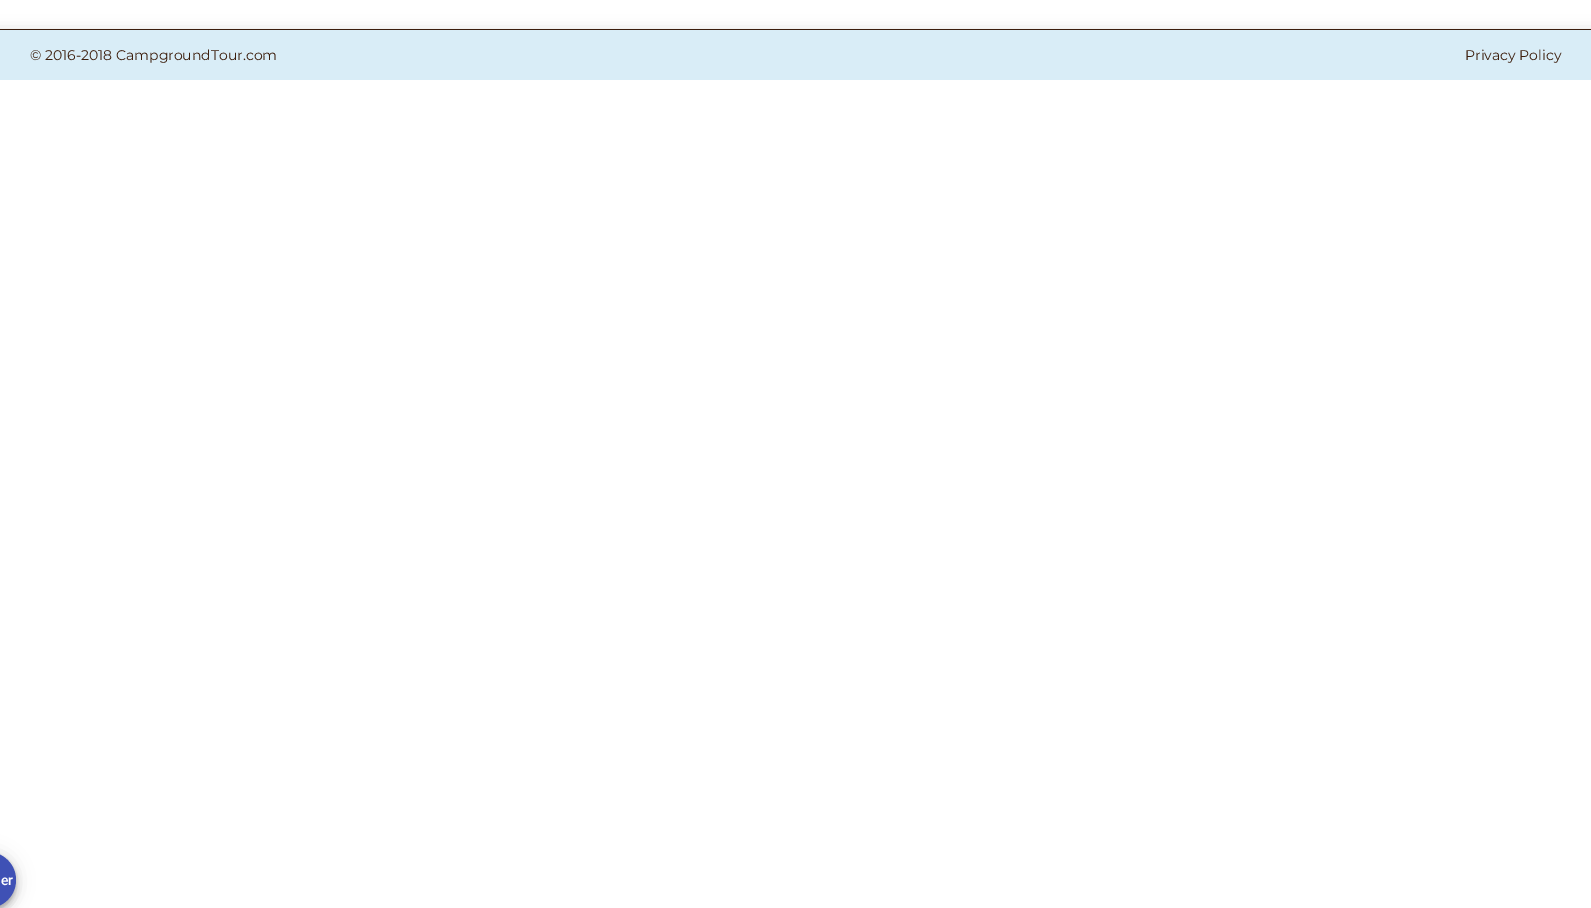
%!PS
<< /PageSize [1591 908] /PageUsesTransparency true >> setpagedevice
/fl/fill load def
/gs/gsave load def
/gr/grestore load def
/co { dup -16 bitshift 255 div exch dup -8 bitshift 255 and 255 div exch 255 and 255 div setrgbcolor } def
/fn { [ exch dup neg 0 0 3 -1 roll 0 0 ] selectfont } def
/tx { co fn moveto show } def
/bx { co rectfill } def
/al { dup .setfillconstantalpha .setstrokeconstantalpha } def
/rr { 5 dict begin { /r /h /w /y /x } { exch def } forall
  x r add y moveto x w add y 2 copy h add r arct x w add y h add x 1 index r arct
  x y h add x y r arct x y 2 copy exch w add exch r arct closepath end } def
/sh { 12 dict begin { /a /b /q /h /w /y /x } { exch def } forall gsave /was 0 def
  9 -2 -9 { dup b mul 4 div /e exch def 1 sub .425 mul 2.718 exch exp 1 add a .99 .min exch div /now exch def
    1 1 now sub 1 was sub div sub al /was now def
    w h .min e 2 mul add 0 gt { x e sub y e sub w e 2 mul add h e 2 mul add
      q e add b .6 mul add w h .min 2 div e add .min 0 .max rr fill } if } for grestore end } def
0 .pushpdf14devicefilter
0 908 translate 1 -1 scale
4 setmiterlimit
0 0 1591 908 16#FFFFFF bx
gs
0 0 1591 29 rectclip
16#000000 co
-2 30 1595 811 0 7 .12 sh
gr
0 30 1591 50 16#D9EDF7 bx
0 29 1591 1 16#3C1E0D bx
16#000000 co
-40 853 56 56 28 9 .12 sh
-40 858 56 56 28 5 .14 sh
-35 856 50 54 27 2.5 .2 sh
16#3F51B5 co
-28 852 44 56 28 rr fl
(© 2016-2018 CampgroundTour.com) 30 60 /Montserrat-Thin 14 16#3C1E0D tx
(Privacy Policy) 1465 60 /Montserrat-Thin 14 16#3C1E0D tx
(er) 1 885 /Roboto-Medium 14 16#FFFFFF tx
.poppdf14devicefilter showpage
